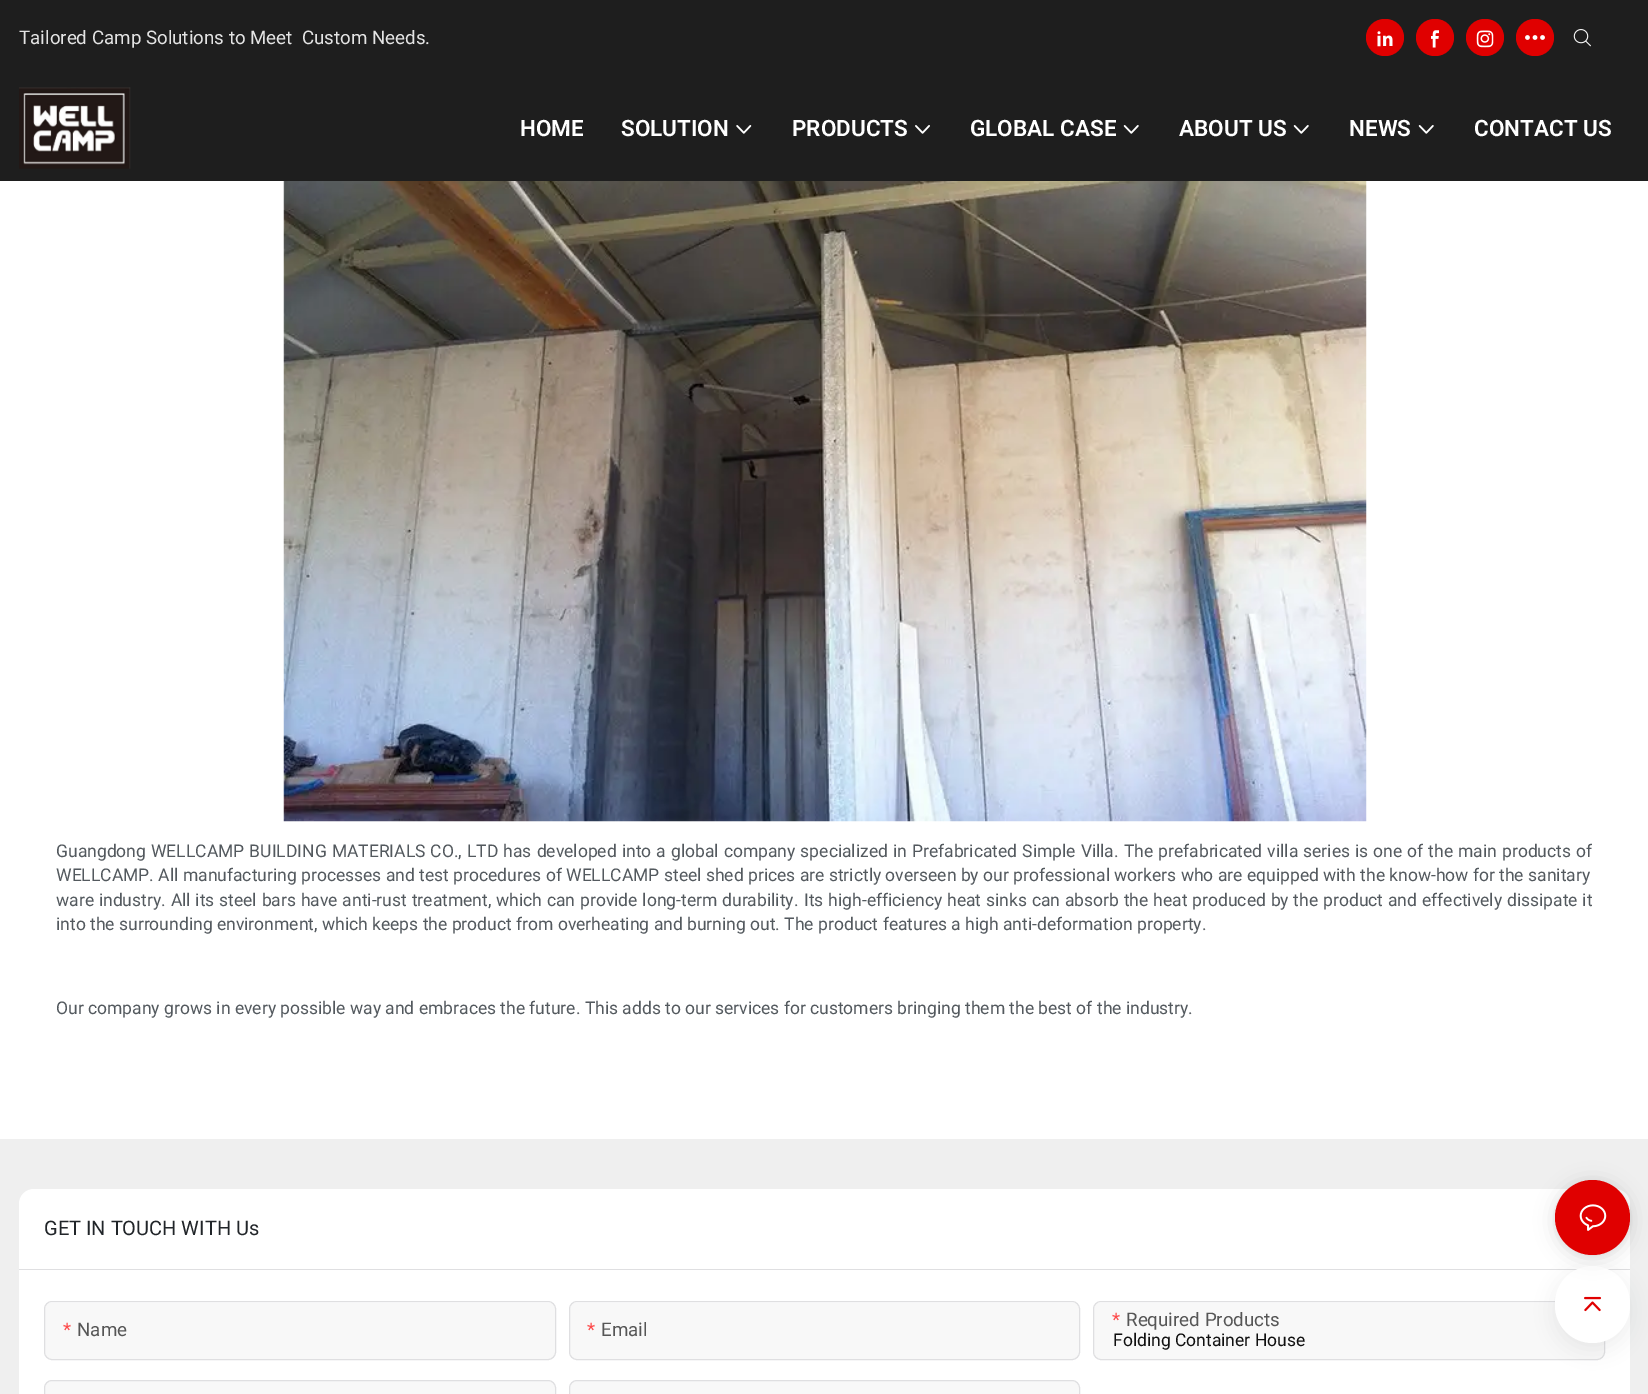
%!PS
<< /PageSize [1648 1394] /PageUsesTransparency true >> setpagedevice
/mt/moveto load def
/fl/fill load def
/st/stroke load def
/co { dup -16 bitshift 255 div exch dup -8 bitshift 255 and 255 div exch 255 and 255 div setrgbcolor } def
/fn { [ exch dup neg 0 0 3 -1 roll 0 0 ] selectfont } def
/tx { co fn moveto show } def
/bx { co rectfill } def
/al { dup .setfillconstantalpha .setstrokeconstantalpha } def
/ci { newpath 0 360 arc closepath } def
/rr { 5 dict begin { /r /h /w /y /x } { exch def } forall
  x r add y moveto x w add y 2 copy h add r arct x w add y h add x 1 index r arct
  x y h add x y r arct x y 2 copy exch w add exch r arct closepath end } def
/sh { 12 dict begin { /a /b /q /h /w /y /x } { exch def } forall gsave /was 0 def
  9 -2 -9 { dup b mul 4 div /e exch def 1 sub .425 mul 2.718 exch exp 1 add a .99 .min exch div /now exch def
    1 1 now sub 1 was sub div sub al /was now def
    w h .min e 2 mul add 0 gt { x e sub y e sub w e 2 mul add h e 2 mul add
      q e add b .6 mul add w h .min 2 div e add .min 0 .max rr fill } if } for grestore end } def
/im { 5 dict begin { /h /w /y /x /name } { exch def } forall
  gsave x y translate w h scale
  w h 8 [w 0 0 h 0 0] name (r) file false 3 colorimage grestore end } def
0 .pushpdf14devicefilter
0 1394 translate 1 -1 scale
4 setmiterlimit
0 0 1648 1394 16#EFEFEF bx
0 0 1648 181 16#1E1E1E bx
16#E00000 co
1366 19 38 37 18.5 rr fl
(media/1.raw) 1377 31 16 16 im
1416 19 38 37 18.5 rr fl
(media/2.raw) 1431 30 8 18 im
1466 19 38 37 18.5 rr fl
(media/3.raw) 1476 30 18 18 im
1516 19 38 37 18.5 rr fl
(media/4.raw) 1525 35 20 5 im
(media/5.raw) 1573 29 18 18 im
(media/6.raw) 19 87 112 82 im
(media/7.raw) 736 125 16 9 im
(media/8.raw) 915 125 15 9 im
(media/9.raw) 1123 125 16 9 im
(media/9.raw) 1293 125 16 9 im
(media/9.raw) 1418 125 16 9 im
0 181 1648 958 16#FFFFFF bx
(media/10.raw) 283 181 1084 641 im
19 1189 1611 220 15 rr fl
19 1269 1611 1 16#DFDFE1 bx
16#F8F8F8 co
45 1303 510 56 6 rr fl
16#DFDFE1 co
44.5 1301.5 511 58 7.5 rr st
16#F8F8F8 co
570 1303 509 56 6 rr fl
16#DFDFE1 co
569.5 1301.5 510 58 7.5 rr st
16#F8F8F8 co
1094 1303 510 56 6 rr fl
16#DFDFE1 co
1093.5 1301.5 511 58 7.5 rr st
16#F8F8F8 co
45 1381 510 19 6 rr fl
16#DFDFE1 co
44.5 1380.5 511 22 7.5 rr st
16#F8F8F8 co
570 1381 509 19 6 rr fl
16#DFDFE1 co
569.5 1380.5 510 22 7.5 rr st
16#282F36 co
1555 1273 75 76 37.5 9.5 .08 sh
16#FFFFFF co
1555 1266 75 77 37.5 rr fl
16#000000 co
1555 1183 75 75 37.5 10 .12 sh
1555 1181 75 75 37.5 2.5 .06 sh
16#E00000 co
1592.5 1217.5 37.5 ci fl
(media/11.raw) 1579 1204 28 27 im
(media/12.raw) 1584 1296 17 16 im
(Tailored Camp Solutions to Meet  Custom Needs.) 19 44 /Roboto-Regular 18.75 16#E4E4E4 tx
(HOME) 520 136 /Roboto-SemiBold 22.5 16#FFFFFF tx
(SOLUTION) 621 136 /Roboto-SemiBold 22.5 16#FFFFFF tx
(PRODUCTS) 792 136 /Roboto-SemiBold 22.5 16#FFFFFF tx
(GLOBAL CASE) 970 136 /Roboto-SemiBold 22.5 16#FFFFFF tx
(ABOUT US) 1179 136 /Roboto-SemiBold 22.5 16#FFFFFF tx
(NEWS) 1349 136 /Roboto-SemiBold 22.5 16#FFFFFF tx
(CONTACT US) 1474 136 /Roboto-SemiBold 22.5 16#FFFFFF tx
/Roboto-Regular 17.5 fn
16#53595E co
56 857 mt .7 0 32 (Guangdong WELLCAMP BUILDING MATERIALS CO., LTD has developed into a global company specialized in Prefabricated Simple Villa. The prefabricated villa series is one of the main products of) widthshow
(WELLCAMP. All manufacturing processes and test procedures of WELLCAMP steel shed prices are strictly overseen by our professional workers who are equipped with the know-how for the sanitary) 56 881 /Roboto-Regular 17.5 16#53595E tx
56 906 mt .5 0 32 (ware industry. All its steel bars have anti-rust treatment, which can provide long-term durability.) widthshow
804 906 mt .5 0 32 (Its high-efficiency heat sinks can absorb the heat produced by the product and effectively dissipate it) widthshow
(into the surrounding environment, which keeps the product from overheating and burning out. The product features a high anti-deformation property.) 56 930 /Roboto-Regular 17.5 16#53595E tx
(Our company grows in every possible way and embraces the future. This adds to our services for customers bringing them the best of the industry.) 56 1014 /Roboto-Regular 17.5 16#53595E tx
(GET IN TOUCH WITH Us) 44 1235 /Roboto-Regular 20 16#212529 tx
(*) 63 1336 /Roboto-Regular 18.75 16#FD4A4A tx
(Name) 77 1336 /Roboto-Regular 18.75 16#565656 tx
(*) 587 1336 /Roboto-Regular 18.75 16#FD4A4A tx
(Email) 601 1336 /Roboto-Regular 18.75 16#565656 tx
(*) 1112 1326 /Roboto-Regular 18.75 16#FD4A4A tx
(Required Products) 1126 1326 /Roboto-Regular 18.75 16#565656 tx
(Folding Container House) 1113 1346 /Roboto-Regular 17.5 16#101010 tx
.poppdf14devicefilter showpage
